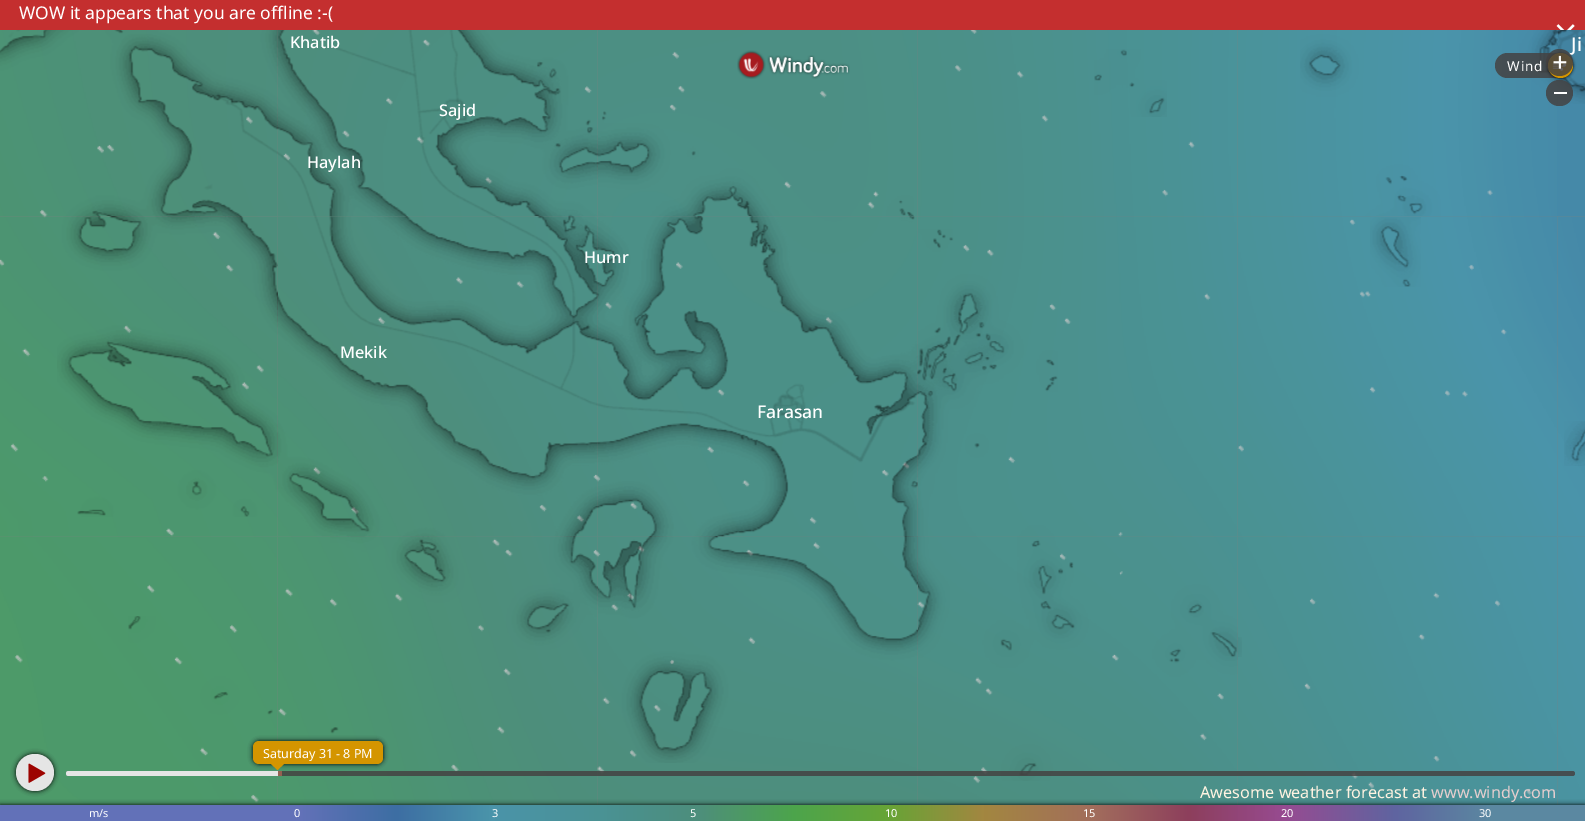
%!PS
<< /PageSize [1585 821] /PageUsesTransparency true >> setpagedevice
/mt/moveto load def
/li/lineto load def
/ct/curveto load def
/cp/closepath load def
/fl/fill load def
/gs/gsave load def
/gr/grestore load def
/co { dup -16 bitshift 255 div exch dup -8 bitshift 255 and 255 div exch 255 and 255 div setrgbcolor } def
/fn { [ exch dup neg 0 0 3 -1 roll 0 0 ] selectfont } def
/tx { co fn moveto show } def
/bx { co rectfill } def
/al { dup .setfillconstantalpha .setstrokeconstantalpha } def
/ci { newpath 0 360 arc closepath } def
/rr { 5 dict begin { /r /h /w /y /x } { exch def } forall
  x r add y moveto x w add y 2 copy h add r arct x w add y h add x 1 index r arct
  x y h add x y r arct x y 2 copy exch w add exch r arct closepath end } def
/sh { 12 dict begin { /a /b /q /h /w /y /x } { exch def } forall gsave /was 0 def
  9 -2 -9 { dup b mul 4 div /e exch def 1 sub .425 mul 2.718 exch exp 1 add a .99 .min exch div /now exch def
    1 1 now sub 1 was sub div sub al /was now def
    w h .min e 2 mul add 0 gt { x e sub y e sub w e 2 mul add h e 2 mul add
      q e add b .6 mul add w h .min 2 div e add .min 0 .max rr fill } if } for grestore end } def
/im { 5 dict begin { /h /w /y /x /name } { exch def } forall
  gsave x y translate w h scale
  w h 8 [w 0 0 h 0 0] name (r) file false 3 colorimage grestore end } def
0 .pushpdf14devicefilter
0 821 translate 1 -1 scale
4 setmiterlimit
0 0 1585 821 16#808080 bx
0 0 1585 30 16#C42F2F bx
(media/1.raw) 1556 24 19 6 im
(media/9.raw) 597 216 321 321 im
(media/10.raw) 917 216 321 321 im
(media/4.raw) 597 30 321 187 im
(media/15.raw) 597 536 321 269 im
(media/8.raw) 277 216 321 321 im
(media/3.raw) 277 30 321 187 im
(media/2.raw) 0 30 278 186 im
(media/5.raw) 917 30 321 187 im
(media/16.raw) 917 536 321 269 im
(media/11.raw) 1237 216 321 321 im
(media/6.raw) 1237 30 321 187 im
1557 30 28 186 16#4589A8 bx
(media/14.raw) 277 536 321 269 im
(media/7.raw) 0 216 278 321 im
(media/17.raw) 1237 536 321 269 im
(media/12.raw) 1557 216 28 321 im
(media/13.raw) 0 536 278 269 im
(media/18.raw) 1557 536 28 269 im
(media/19.raw) 0 30 1532 775 im
(media/20.raw) 0 30 278 186 im
(media/21.raw) 278 30 320 186 im
(media/22.raw) 1094 49 73 68 im
(media/23.raw) 1300 30 258 186 im
(media/24.raw) 1558 30 27 74 im
(media/25.raw) 598 111 316 105 im
(media/28.raw) 597 216 321 321 im
(media/27.raw) 277 216 321 321 im
(media/26.raw) 57 216 221 301 im
(media/29.raw) 917 229 141 307 im
(media/30.raw) 1370 217 51 70 im
(media/31.raw) 1564 421 21 45 im
(media/32.raw) 128 616 145 99 im
(media/33.raw) 330 536 268 198 im
(media/34.raw) 598 536 320 227 im
(media/35.raw) 918 536 320 245 im
(media/36.raw) 1238 637 4 20 im
(media/37.raw) 737 50 29 29 im
(media/38.raw) 767 55 83 24 im
16#000000 co
16 754 38 37 18.5 2.5 1 sh
16#E5E5E5 co
16 754 38 37 18.5 rr fl
(media/41.raw) 28 763 18 20 im
16#000000 co
253 741 130 23 6 2.5 1 sh
16#D49500 co
253 741 130 23 6 rr fl
271 764 mt 284 764 li 277.5 770 li cp fl
0.84 al
16#444141 co
66 771 1509 5 2.5 rr fl
1 al
16#E5E5E5 co
68.5 771 mt 278 771 li 278 776 li 68.5 776 li 67 776 66 775 66 773.5 ct 66 772 67 771 68.5 771 ct cp fl
278 771 4 5 16#946051 bx
16#000000 co
0 805 1585 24 0 2.5 1 sh
gs 0 805 mt 1585 805 li 1585 821 li 0 821 li cp clip newpath
<< /ShadingType 2 /ColorSpace /DeviceRGB /Coords [0 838 1585 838] /Extend [true true] /Function << /FunctionType 3 /Domain [0 1] /Functions [<< /FunctionType 2 /Domain [0 1] /C0 [.384 .443 .722] /C1 [.384 .443 .722] /N 1 >> << /FunctionType 2 /Domain [0 1] /C0 [.384 .443 .722] /C1 [.239 .431 .639] /N 1 >> << /FunctionType 2 /Domain [0 1] /C0 [.239 .431 .639] /C1 [.29 .58 .667] /N 1 >> << /FunctionType 2 /Domain [0 1] /C0 [.29 .58 .667] /C1 [.29 .573 .58] /N 1 >> << /FunctionType 2 /Domain [0 1] /C0 [.29 .573 .58] /C1 [.302 .557 .486] /N 1 >> << /FunctionType 2 /Domain [0 1] /C0 [.302 .557 .486] /C1 [.298 .643 .298] /N 1 >> << /FunctionType 2 /Domain [0 1] /C0 [.298 .643 .298] /C1 [.404 .643 .212] /N 1 >> << /FunctionType 2 /Domain [0 1] /C0 [.404 .643 .212] /C1 [.635 .529 .251] /N 1 >> << /FunctionType 2 /Domain [0 1] /C0 [.635 .529 .251] /C1 [.635 .427 .361] /N 1 >> << /FunctionType 2 /Domain [0 1] /C0 [.635 .427 .361] /C1 [.553 .247 .361] /N 1 >> << /FunctionType 2 /Domain [0 1] /C0 [.553 .247 .361] /C1 [.592 .294 .569] /N 1 >> << /FunctionType 2 /Domain [0 1] /C0 [.592 .294 .569] /C1 [.373 .392 .627] /N 1 >> << /FunctionType 2 /Domain [0 1] /C0 [.373 .392 .627] /C1 [.357 .533 .631] /N 1 >> << /FunctionType 2 /Domain [0 1] /C0 [.357 .533 .631] /C1 [.357 .533 .631] /N 1 >>] /Bounds [.19 .25 .31 .38 .44 .5 .56 .62 .69 .75 .81 .88 .94] /Encode [0 1 0 1 0 1 0 1 0 1 0 1 0 1 0 1 0 1 0 1 0 1 0 1 0 1 0 1] >> >> shfill gr
(WOW it appears that you are offline :-\() 19 19 /NotoSans-Regular 17.5 16#FFFFFF tx
(Khatib) 290 48 /NotoSans-Medium 16.25 16#FFFFFF tx
(Sajid) 439 116 /NotoSans-Medium 16.25 16#FFFFFF tx
(Haylah) 307 168 /NotoSans-Medium 16.25 16#FFFFFF tx
(Ji) 1571 51 /NotoSans-Medium 19 16#FFFFFF tx
(Mekik) 340 358 /NotoSans-Medium 16.25 16#FFFFFF tx
(Humr) 584 263 /NotoSans-Medium 16.25 16#FFFFFF tx
(Farasan) 757 418 /NotoSans-Medium 17.5 16#FFFFFF tx
0.84 al
16#444141 co
1495 53 78 25 12.5 rr fl
/NotoSans-Regular 13.5 fn
1 al
16#FFFFFF co
1507 71 mt 1 0 (Wind) ashow
16#000000 co
1548 53 25 25 12.5 1.5 1 sh
16#D49500 co
1560.5 65.5 12.5 ci fl
(media/39.raw) 1552 61 15 10 im
0.84 al
16#444141 co
1559.5 62.5 13.5 ci fl
1 al
(media/40.raw) 1553 55 14 14 im
0.84 al
1546 80 27 26 13 rr fl
1 al
1554 92 13 2 16#FFFFFF bx
(Saturday 31 - 8 PM) 263 758 /NotoSans-Regular 12.5 16#FFFFFF tx
(Awesome weather forecast at) 1200 798 /NotoSans-Regular 16.25 16#FFF3E1 tx
(www.windy.com) 1431 798 /NotoSans-Regular 16.25 16#E6CECE tx
(m/s) 89 817 /NotoSans-Regular 11 16#FFFFFF tx
(0) 294 817 /NotoSans-Regular 11 16#FFFFFF tx
(3) 492 817 /NotoSans-Regular 11 16#FFFFFF tx
(5) 690 817 /NotoSans-Regular 11 16#FFFFFF tx
(10) 885 817 /NotoSans-Regular 11 16#FFFFFF tx
(15) 1083 817 /NotoSans-Regular 11 16#FFFFFF tx
(20) 1281 817 /NotoSans-Regular 11 16#FFFFFF tx
(30) 1479 817 /NotoSans-Regular 11 16#FFFFFF tx
.poppdf14devicefilter showpage
